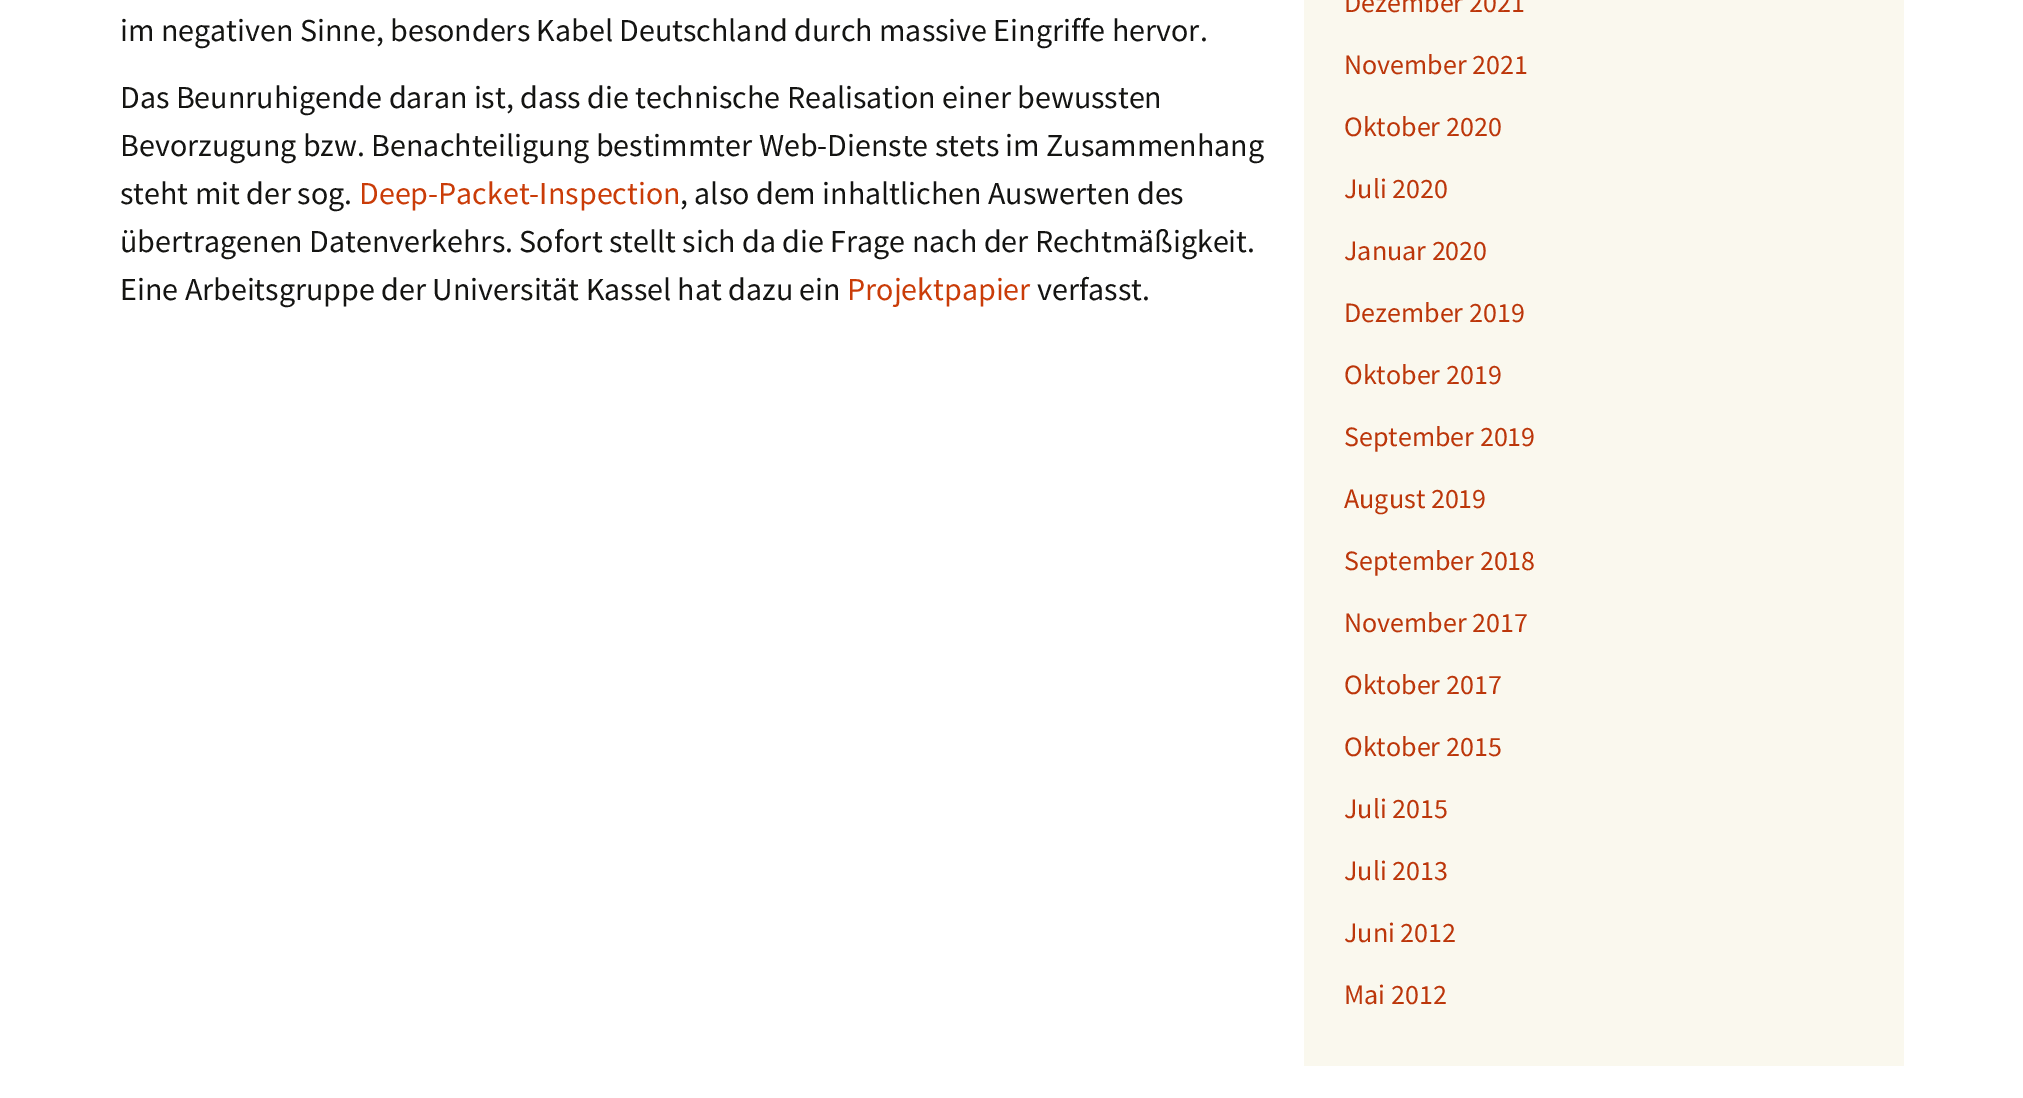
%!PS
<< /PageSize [2023 1098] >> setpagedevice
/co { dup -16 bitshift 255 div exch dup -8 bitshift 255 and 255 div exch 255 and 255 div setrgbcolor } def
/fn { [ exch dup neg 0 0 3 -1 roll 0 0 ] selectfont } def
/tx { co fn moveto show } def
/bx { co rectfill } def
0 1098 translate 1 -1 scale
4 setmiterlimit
0 0 2023 1098 16#FFFFFF bx
1304 0 600 1066 16#FAF8EE bx
(im negativen Sinne, besonders Kabel Deutschland durch massive Eingriffe hervor.) 120 41 /SourceSansPro-Regular 32 16#141412 tx
(Das Beunruhigende daran ist, dass die technische Realisation einer bewussten) 120 108 /SourceSansPro-Regular 32 16#141412 tx
(Bevorzugung bzw. Benachteiligung bestimmter Web-Dienste stets im Zusammenhang) 120 156 /SourceSansPro-Regular 32 16#141412 tx
(steht mit der sog.) 120 204 /SourceSansPro-Regular 32 16#141412 tx
(Deep-Packet-Inspection) 359 204 /SourceSansPro-Regular 32 16#CA3C08 tx
(, also dem inhaltlichen Auswerten des) 680 204 /SourceSansPro-Regular 32 16#141412 tx
(übertragenen Datenverkehrs. Sofort stellt sich da die Frage nach der Rechtmäßigkeit.) 120 252 /SourceSansPro-Regular 32 16#141412 tx
(Eine Arbeitsgruppe der Universität Kassel hat dazu ein) 120 300 /SourceSansPro-Regular 32 16#141412 tx
(Projektpapier) 847 300 /SourceSansPro-Regular 32 16#CA3C08 tx
(verfasst.) 1037 300 /SourceSansPro-Regular 32 16#141412 tx
(Dezember 2021) 1344 12 /SourceSansPro-Regular 28 16#BC360A tx
(November 2021) 1344 74 /SourceSansPro-Regular 28 16#BC360A tx
(Oktober 2020) 1344 136 /SourceSansPro-Regular 28 16#BC360A tx
(Juli 2020) 1344 198 /SourceSansPro-Regular 28 16#BC360A tx
(Januar 2020) 1344 260 /SourceSansPro-Regular 28 16#BC360A tx
(Dezember 2019) 1344 322 /SourceSansPro-Regular 28 16#BC360A tx
(Oktober 2019) 1344 384 /SourceSansPro-Regular 28 16#BC360A tx
(September 2019) 1344 446 /SourceSansPro-Regular 28 16#BC360A tx
(August 2019) 1344 508 /SourceSansPro-Regular 28 16#BC360A tx
(September 2018) 1344 570 /SourceSansPro-Regular 28 16#BC360A tx
(November 2017) 1344 632 /SourceSansPro-Regular 28 16#BC360A tx
(Oktober 2017) 1344 694 /SourceSansPro-Regular 28 16#BC360A tx
(Oktober 2015) 1344 756 /SourceSansPro-Regular 28 16#BC360A tx
(Juli 2015) 1344 818 /SourceSansPro-Regular 28 16#BC360A tx
(Juli 2013) 1344 880 /SourceSansPro-Regular 28 16#BC360A tx
(Juni 2012) 1344 942 /SourceSansPro-Regular 28 16#BC360A tx
(Mai 2012) 1344 1004 /SourceSansPro-Regular 28 16#BC360A tx
showpage
